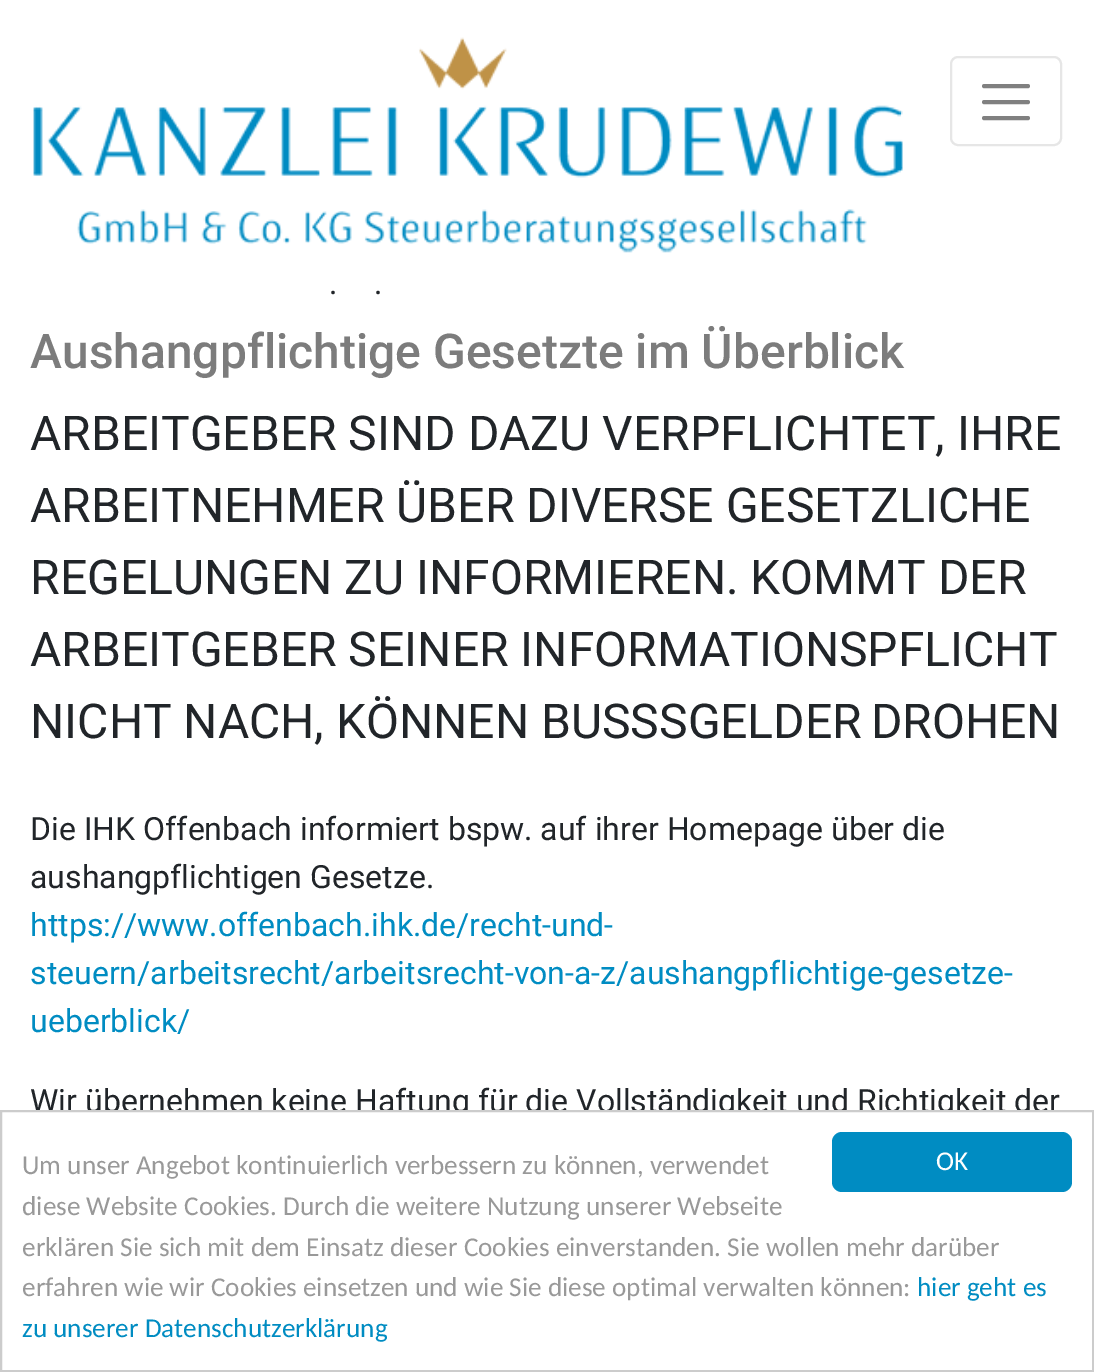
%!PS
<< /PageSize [1094 1372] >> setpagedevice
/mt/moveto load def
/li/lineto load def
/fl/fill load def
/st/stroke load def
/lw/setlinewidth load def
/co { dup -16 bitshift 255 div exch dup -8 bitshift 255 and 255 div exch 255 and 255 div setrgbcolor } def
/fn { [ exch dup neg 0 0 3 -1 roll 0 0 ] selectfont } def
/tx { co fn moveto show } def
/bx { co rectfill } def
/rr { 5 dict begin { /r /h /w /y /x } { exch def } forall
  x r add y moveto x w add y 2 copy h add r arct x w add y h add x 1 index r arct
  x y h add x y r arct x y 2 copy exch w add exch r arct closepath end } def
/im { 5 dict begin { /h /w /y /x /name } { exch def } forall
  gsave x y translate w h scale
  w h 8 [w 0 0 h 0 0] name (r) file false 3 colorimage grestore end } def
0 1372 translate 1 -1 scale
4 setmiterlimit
0 0 1094 1372 16#FFFFFF bx
(media/1.raw) 33 37 870 216 im
16#E6E6E6 co
2 lw
951 57 110 88 7 rr st
16#808080 co
4 lw
1 setlinecap
984 86 mt 1028 86 li 984 102 mt 1028 102 li 984 118 mt 1028 118 li st
(.) 329 294 /Roboto-Regular 32 16#212529 tx
(.) 374 294 /Roboto-Regular 32 16#212529 tx
(Aushangpflichtige Gesetzte im Überblick) 30 368 /Roboto-Medium 48 16#7C7C7C tx
(ARBEITGEBER SIND DAZU VERPFLICHTET, IHRE) 30 450 /Roboto-Regular 48 16#212529 tx
(ARBEITNEHMER ÜBER DIVERSE GESETZLICHE) 30 522 /Roboto-Regular 48 16#212529 tx
(REGELUNGEN ZU INFORMIEREN. KOMMT DER) 30 594 /Roboto-Regular 48 16#212529 tx
(ARBEITGEBER SEINER INFORMATIONSPFLICHT) 30 666 /Roboto-Regular 48 16#212529 tx
(NICHT NACH, KÖNNEN BUSS) 30 738 /Roboto-Regular 48 16#212529 tx
659 738 mt -3 0 32 (SGELDER DROHEN) widthshow
(Die IHK Offenbach informiert bspw. auf ihrer Homepage über die) 30 840 /Roboto-Regular 32 16#212529 tx
(aushangpflichtigen Gesetze.) 30 888 /Roboto-Regular 32 16#212529 tx
(https://www.offenbach.ihk.de/recht-und-) 30 936 /Roboto-Regular 32 16#008CC2 tx
(steuern/arbeitsrecht/arbeitsrecht-von-a-z/aushangpflichtige-gesetze-) 30 984 /Roboto-Regular 32 16#008CC2 tx
(ueberblick/) 30 1032 /Roboto-Regular 32 16#008CC2 tx
(Wir übernehmen keine Haftung für die Vollständigkeit und Richtigkeit der) 30 1112 /Roboto-Regular 32 16#212529 tx
90 1112 954 7 16#FFFFFF bx
16#CCCCCC co
2 lw
0 setlinecap
1 1111 1092 260 rectstroke
16#008CC2 co
832 1132 240 60 10 rr fl
(OK) 936 1170 /Carlito-Regular 27.2 16#FFFFFF tx
(Um unser Angebot kontinuierlich verbessern zu können, verwendet) 22 1174 /Carlito-Regular 27.2 16#999999 tx
(diese Website Cookies. Durch die weitere Nutzung unserer Webseite) 22 1215 /Carlito-Regular 27.2 16#999999 tx
(erklären Sie sich mit dem Einsatz dieser Cookies einverstanden. Sie wollen mehr darüber) 22 1256 /Carlito-Regular 27.2 16#999999 tx
(erfahren wie wir Cookies einsetzen und wie Sie diese optimal verwalten können:) 22 1296 /Carlito-Regular 27.2 16#999999 tx
(hier geht es) 917 1296 /Carlito-Regular 27.2 16#008CC2 tx
(zu unserer Datenschutzerklärung) 22 1337 /Carlito-Regular 27.2 16#008CC2 tx
showpage
